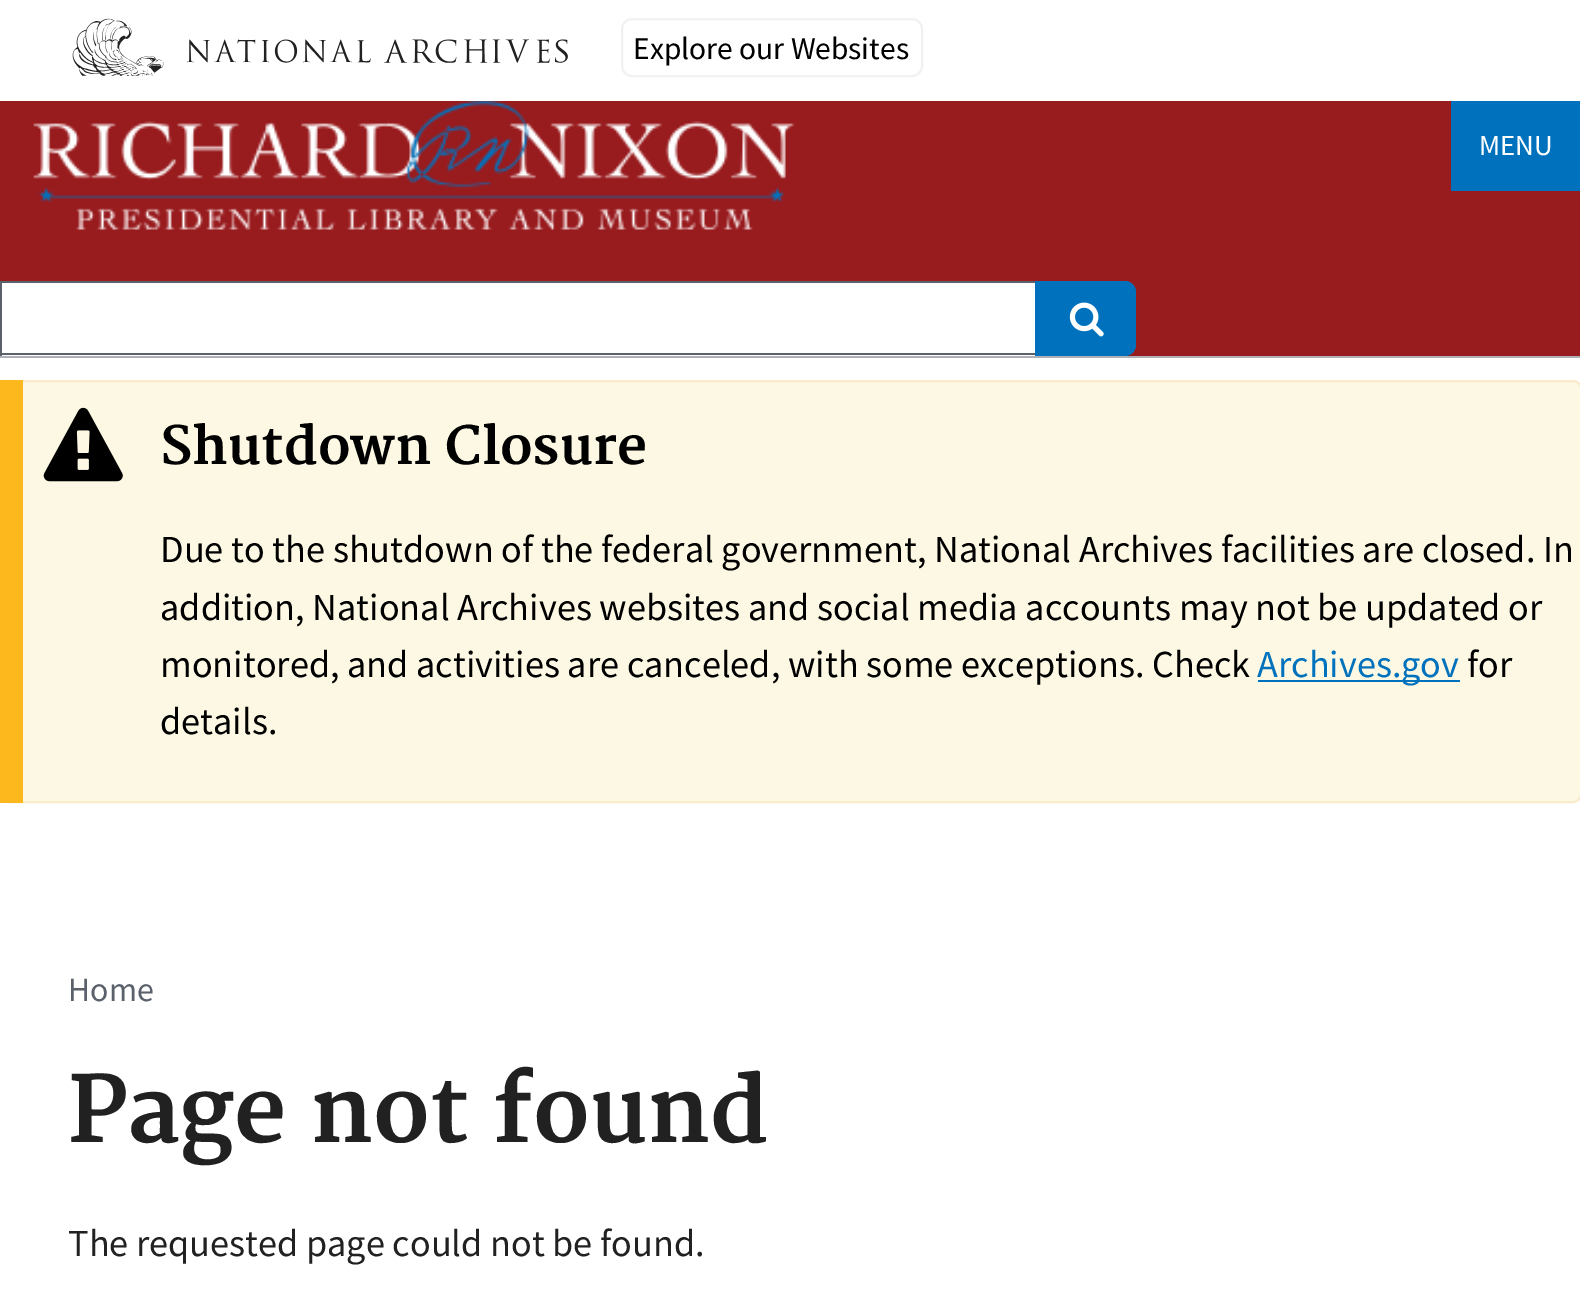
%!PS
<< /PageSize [1580 1311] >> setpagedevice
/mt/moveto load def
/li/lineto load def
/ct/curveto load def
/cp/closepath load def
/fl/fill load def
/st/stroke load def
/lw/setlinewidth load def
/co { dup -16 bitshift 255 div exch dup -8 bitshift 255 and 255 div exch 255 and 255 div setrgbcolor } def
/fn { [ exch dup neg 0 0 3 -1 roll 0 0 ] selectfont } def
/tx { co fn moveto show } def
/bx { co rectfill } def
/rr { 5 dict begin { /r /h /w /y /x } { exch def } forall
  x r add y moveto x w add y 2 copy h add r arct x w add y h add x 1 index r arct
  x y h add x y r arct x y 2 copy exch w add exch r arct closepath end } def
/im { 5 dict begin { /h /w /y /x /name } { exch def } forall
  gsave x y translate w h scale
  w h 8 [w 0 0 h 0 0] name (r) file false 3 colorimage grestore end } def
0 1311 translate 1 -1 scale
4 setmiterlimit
0 0 1580 1311 16#FFFFFF bx
(media/1.raw) 72 18 496 58 im
16#F1F1F1 co
2 lw
622 19 300 57 10 rr st
0 101 1580 255 16#981B1E bx
0 356 1580 2 16#AEB0B5 bx
(media/2.raw) 33 101 762 129 im
2 283 1033 73 16#FFFFFF bx
0 281 1035 2 16#5B616B bx
0 353 1035 2 16#5B616B bx
0 281 2 75 16#5B616B bx
16#0071BC co
1035 281 mt 1125 281 li 1131 281 1136 286 1136 292 ct 1136 345 li 1136 351 1131 356 1125 356 ct 1035 356 li cp fl
(media/3.raw) 1069 302 35 35 im
1451 101 129 90 16#0071BC bx
16#FCF8E3 co
0 380 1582 423 9 rr fl
(media/4.raw) 43 407 80 75 im
16#FAEBCC co
1 381 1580 421 8 rr st
0 380 23 423 16#FDB81E bx
1258 680 202 2 16#0071BC bx
(Explore our Websites) 633 59 /SourceSansPro-Regular 31.5 16#000000 tx
(MENU) 1479 155 /SourceSansPro-Regular 29 16#FFFFFF tx
(Shutdown Closure) 160 464 /Merriweather-Bold 51.75 16#000000 tx
(Due to the shutdown of the federal government, National Archives facilities are closed. In) 160 562 /SourceSansPro-Regular 38.25 16#000000 tx
(addition, National Archives websites and social media accounts may not be updated or) 160 620 /SourceSansPro-Regular 38.25 16#000000 tx
(monitored, and activities are canceled, with some exceptions. Check) 160 677 /SourceSansPro-Regular 38.25 16#000000 tx
(Archives.gov) 1257 677 /SourceSansPro-Regular 38.25 16#0071BC tx
(for) 1467 677 /SourceSansPro-Regular 38.25 16#000000 tx
(details.) 160 734 /SourceSansPro-Regular 38.25 16#000000 tx
(Home) 68 1001 /SourceSansPro-Regular 34 16#5B616B tx
(Page not found) 68 1142 /Merriweather-Bold 90 16#212121 tx
(The requested page could not be found.) 68 1256 /SourceSansPro-Regular 38.25 16#212121 tx
showpage
